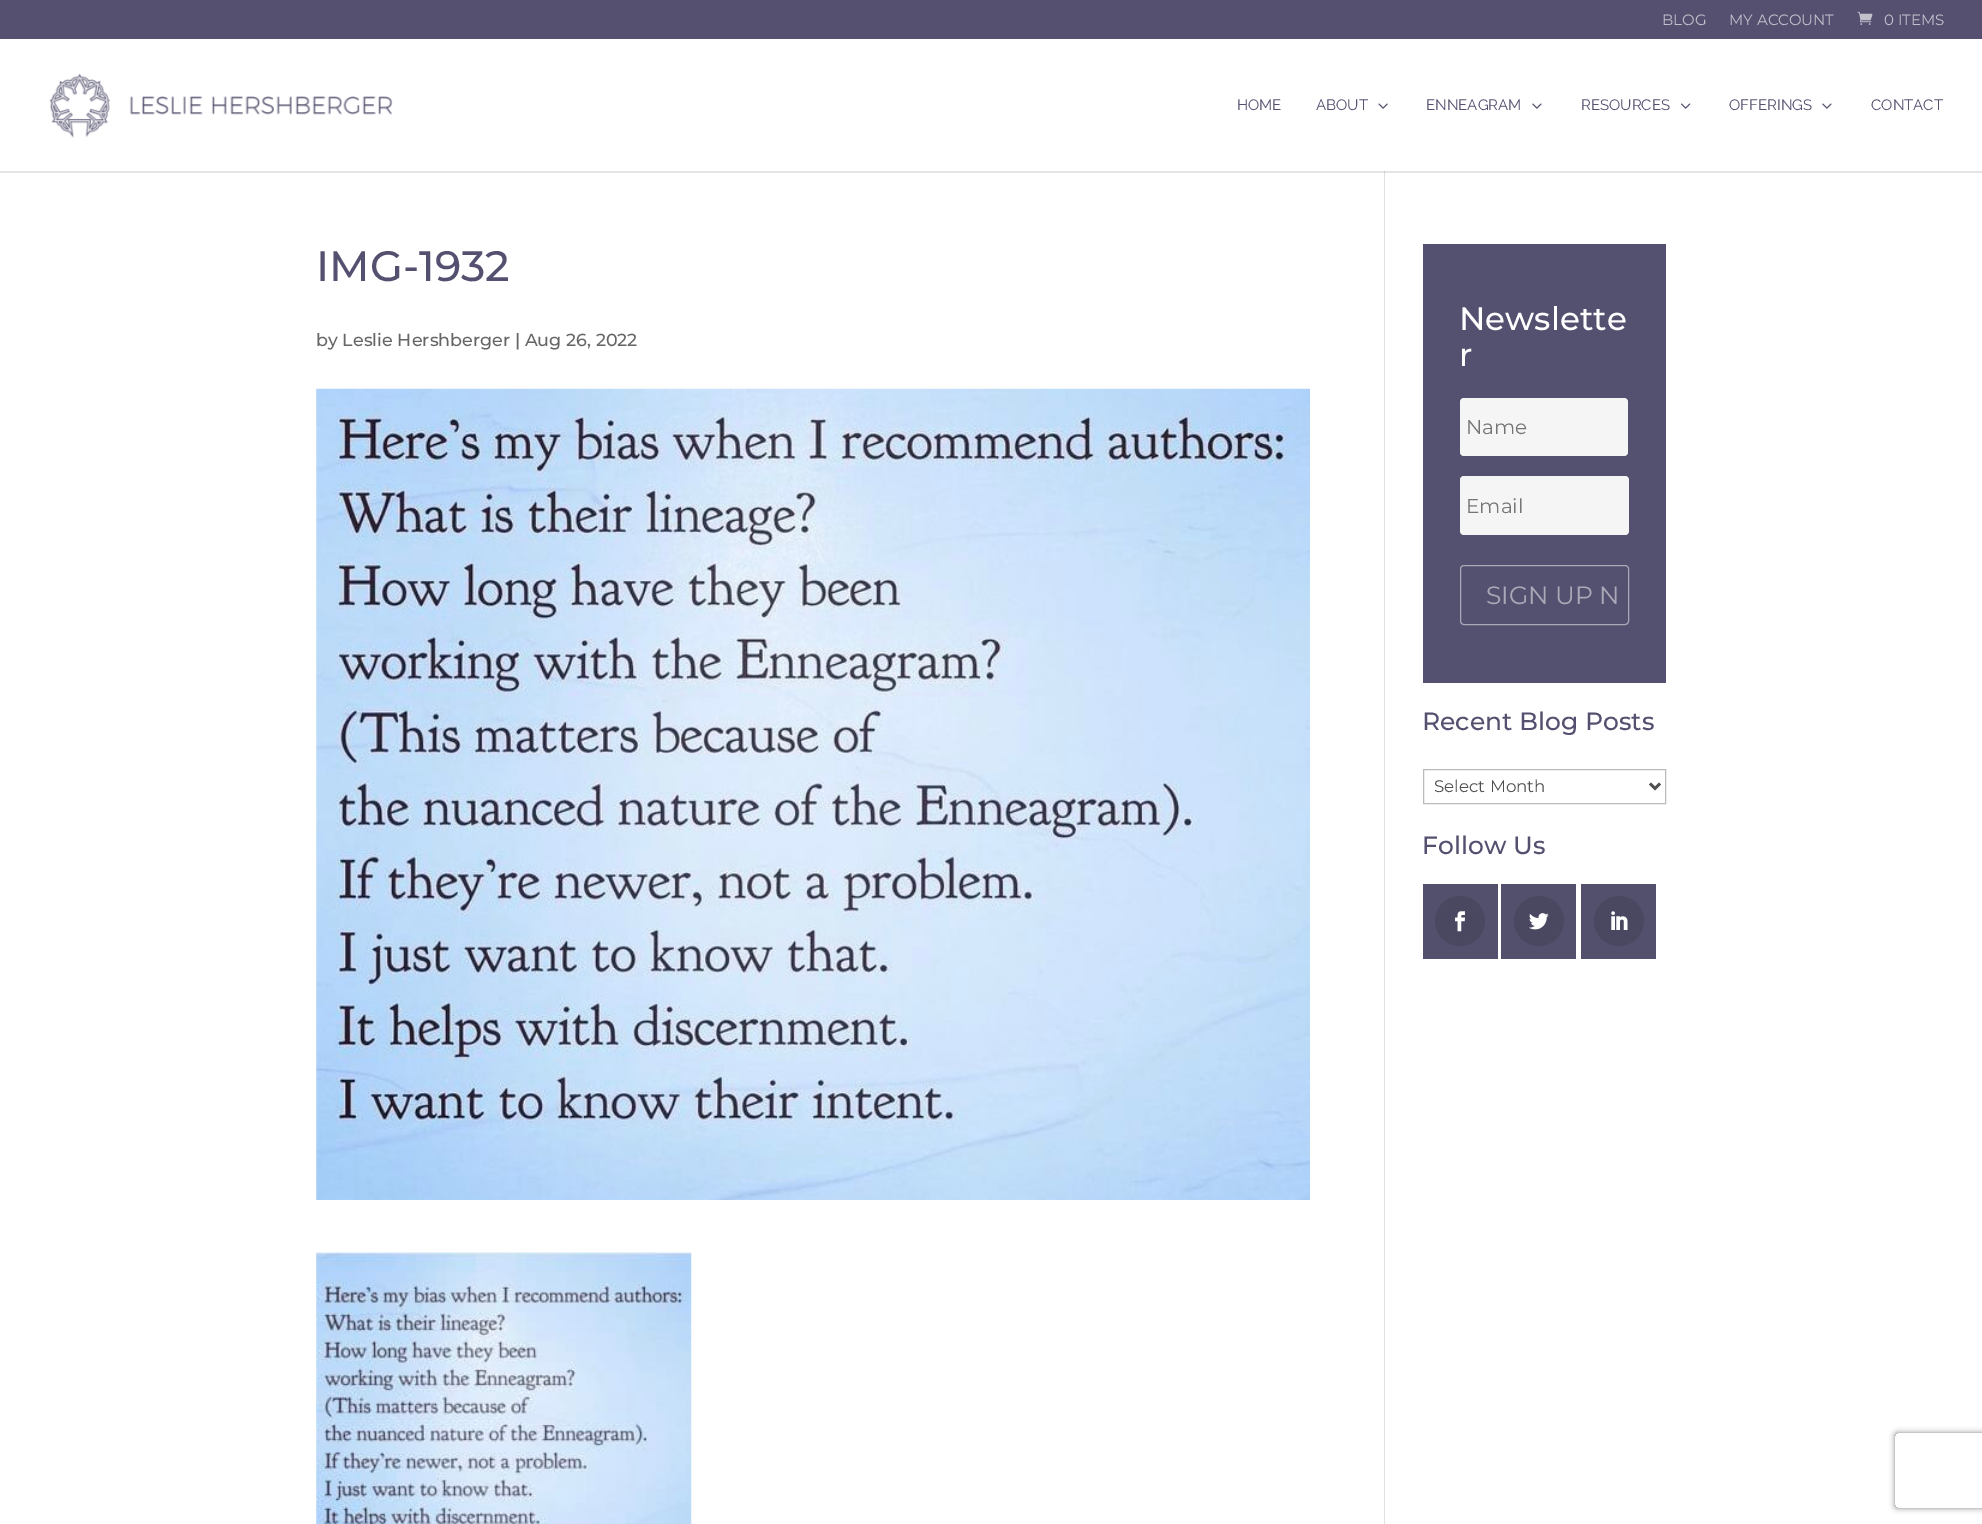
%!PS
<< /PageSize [1982 1524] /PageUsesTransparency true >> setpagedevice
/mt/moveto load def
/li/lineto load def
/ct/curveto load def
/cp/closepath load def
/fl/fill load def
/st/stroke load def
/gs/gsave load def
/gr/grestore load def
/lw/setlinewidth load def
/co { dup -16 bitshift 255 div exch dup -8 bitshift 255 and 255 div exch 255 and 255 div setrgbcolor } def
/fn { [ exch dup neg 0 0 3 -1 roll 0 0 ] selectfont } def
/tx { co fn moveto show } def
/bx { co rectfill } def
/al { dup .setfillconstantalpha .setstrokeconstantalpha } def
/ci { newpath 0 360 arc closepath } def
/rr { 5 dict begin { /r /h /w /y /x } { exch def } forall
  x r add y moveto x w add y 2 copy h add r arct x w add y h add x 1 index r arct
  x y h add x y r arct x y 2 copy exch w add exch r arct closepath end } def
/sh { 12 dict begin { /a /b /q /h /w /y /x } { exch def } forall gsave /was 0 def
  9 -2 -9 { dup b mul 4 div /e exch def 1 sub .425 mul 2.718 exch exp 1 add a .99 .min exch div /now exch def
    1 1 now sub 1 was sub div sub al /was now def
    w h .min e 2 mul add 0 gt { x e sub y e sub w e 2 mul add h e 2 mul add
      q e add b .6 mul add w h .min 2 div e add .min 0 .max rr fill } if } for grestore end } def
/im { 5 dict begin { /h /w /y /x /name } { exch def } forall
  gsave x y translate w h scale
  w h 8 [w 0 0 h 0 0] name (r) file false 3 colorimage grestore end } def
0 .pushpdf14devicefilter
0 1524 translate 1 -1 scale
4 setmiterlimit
0 0 1982 1524 16#FFFFFF bx
0 0 1982 39 16#554F70 bx
(media/1.raw) 1857 11 16 14 im
1384 171 1 1353 16#E2E2E2 bx
0.1 al
16#000000 co
0 171 mt 0 173 li 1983 173 li 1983 40 li 1982 40 li 1982 171 li cp fl
1 al
(media/2.raw) 49 73 344 65 im
(media/3.raw) 1378 103 10 6 im
(media/4.raw) 1532 103 10 6 im
(media/5.raw) 1681 103 10 6 im
(media/4.raw) 1822 103 10 6 im
(media/6.raw) 316 388 994 812 im
(media/7.raw) 316 1252 376 272 im
1423 244 243 439 16#54506F bx
16#F5F5F5 co
1460 398 168 58 4 rr fl
1460 476 169 59 4 rr fl
gs
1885 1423 mt 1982 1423 li 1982 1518 li 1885 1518 li cp 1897.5 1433 mt 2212.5 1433 li 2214 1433 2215 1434 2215 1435.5 ct 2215 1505.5 li 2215 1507 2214 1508 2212.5 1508 ct 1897.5 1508 li 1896 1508 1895 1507 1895 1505.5 ct 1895 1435.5 li 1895 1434 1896 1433 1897.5 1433 ct cp eoclip newpath
16#808080 co
1895 1433 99 75 2.5 3 1 sh
gr
16#AAA8B7 co
1460.5 565.5 168 59 3.5 rr st
16#BBBBBB co
1423.5 769.5 242 34 rectstroke
16#4E4E4E co
2.5 lw
1650 783.5 mt 1655 788.5 li 1660 783.5 li st
1423 884 75 75 16#52506C bx
16#4A4861 co
1460 921 25 ci fl
(media/8.raw) 1455 911 10 21 im
1501 884 75 75 16#52506C bx
16#4A4861 co
1539 921 25 ci fl
(media/9.raw) 1529 913 20 17 im
1581 884 75 75 16#52506C bx
16#4A4861 co
1619 921 25 ci fl
(media/10.raw) 1611 911 17 19 im
(BLOG) 1662 25 /Montserrat-Regular 15 16#C2C0CC tx
(MY ACCOUNT) 1729 25 /Montserrat-Regular 15 16#C2C0CC tx
(0 ITEMS) 1884 25 /Montserrat-Regular 15 16#C2C0CC tx
(HOME) 1237 110 /Raleway-Regular 15 16#54506F tx
(ABOUT) 1316 110 /Raleway-Regular 15 16#54506F tx
(ENNEAGRAM) 1426 110 /Raleway-Regular 15 16#54506F tx
(RESOURCES) 1581 110 /Raleway-Regular 15 16#54506F tx
(OFFERINGS) 1729 110 /Raleway-Regular 15 16#54506F tx
(CONTACT) 1871 110 /Raleway-Regular 15 16#54506F tx
(IMG-1932) 316 281 /Montserrat-Medium 42.5 16#54506F tx
(by Leslie Hershberger | Aug 26, 2022) 316 346 /Montserrat-Medium 17.5 16#666666 tx
(Newslette) 1459 330 /Montserrat-Medium 32.5 16#FFFFFF tx
(r) 1459 366 /Montserrat-Medium 32.5 16#FFFFFF tx
(Name) 1466 434 /Montserrat-Regular 20 16#757575 tx
(Email) 1466 513 /Montserrat-Regular 20 16#757575 tx
(SIGN UP N) 1486 604 /Montserrat-Regular 25 16#AAA8B7 tx
(Recent Blog Posts) 1422 730 /Montserrat-Medium 25 16#54506F tx
(Select Month) 1434 792 /Montserrat-Regular 16.75 16#4E4E4E tx
(Follow Us) 1422 854 /Montserrat-Medium 25 16#54506F tx
.poppdf14devicefilter showpage
